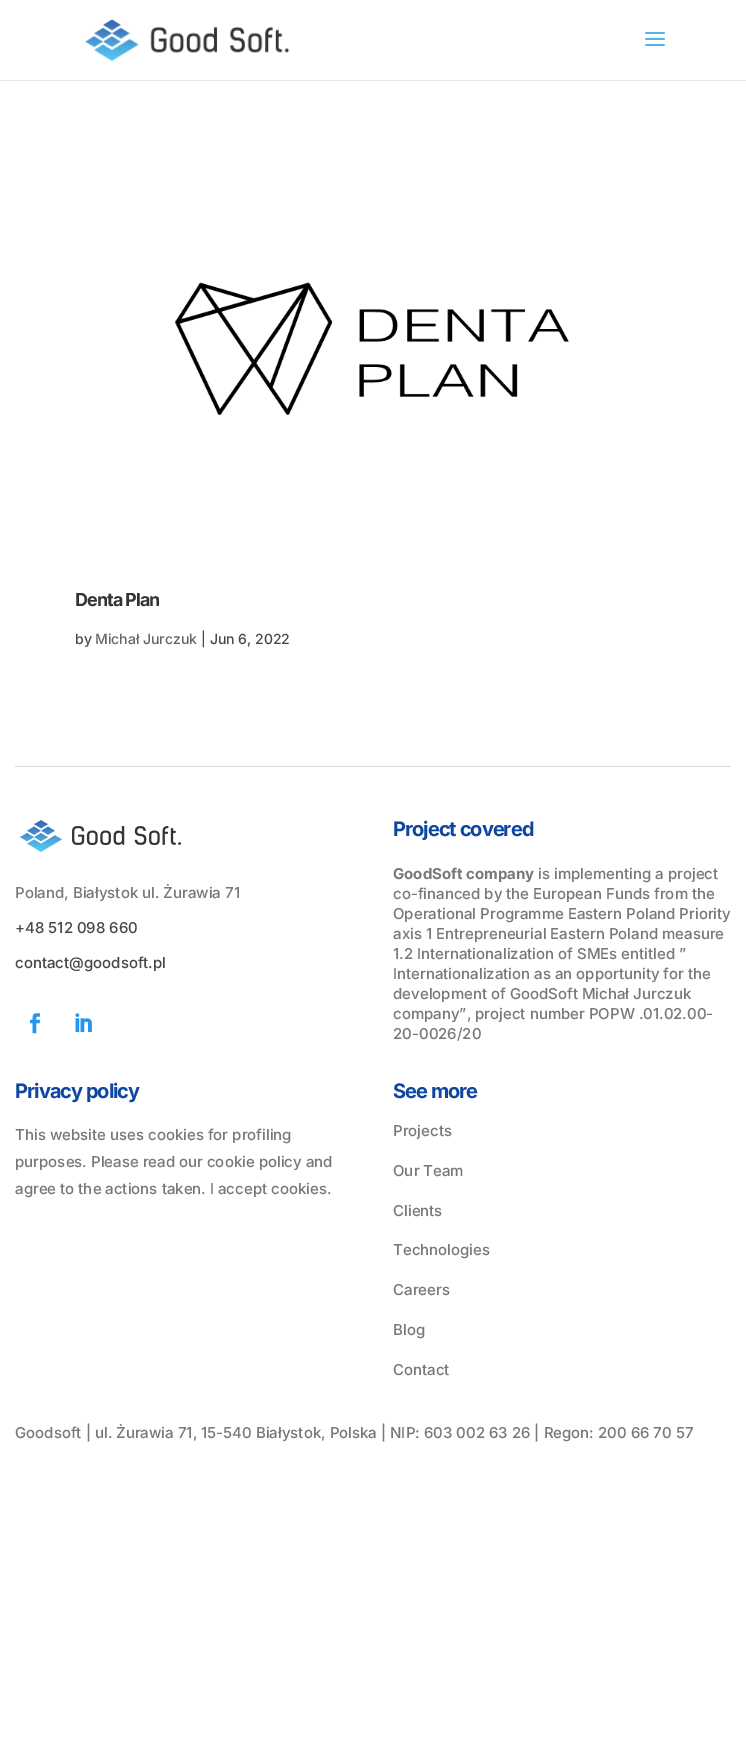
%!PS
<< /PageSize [746 1764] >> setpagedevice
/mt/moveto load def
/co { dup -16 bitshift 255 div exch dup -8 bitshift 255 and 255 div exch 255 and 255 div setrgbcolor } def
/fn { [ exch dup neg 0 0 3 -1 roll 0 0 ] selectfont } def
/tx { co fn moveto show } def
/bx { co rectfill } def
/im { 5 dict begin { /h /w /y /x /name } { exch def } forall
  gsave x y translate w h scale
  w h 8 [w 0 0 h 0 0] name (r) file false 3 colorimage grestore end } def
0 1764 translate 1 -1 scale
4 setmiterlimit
0 0 746 1764 16#FFFFFF bx
0 80 746 1 16#E6E6E6 bx
(media/1.raw) 85 19 205 43 im
(media/2.raw) 645 32 20 14 im
(media/3.raw) 175 282 394 133 im
15 766 716 1 16#D9D9D9 bx
(media/4.raw) 20 820 161 32 im
(media/5.raw) 30 1013 10 21 im
(media/6.raw) 75 1013 17 19 im
/Inter-Bold 18 fn
16#333333 co
75 606 mt -1 0 (Denta Plan) ashow
(by) 75 644 /Inter-Medium 14 16#484848 tx
(Michał Jurczuk) 95 644 /Inter-Medium 14 16#666666 tx
(| Jun 6, 2022) 201 644 /Inter-Medium 14 16#484848 tx
(Poland, Białystok ul. Żurawia 71) 15 898 /Inter-Medium 15 16#787878 tx
(+48 512 098 660) 15 933 /Inter-Medium 15 16#484848 tx
(contact@goodsoft.pl) 15 968 /Inter-Medium 15 16#484848 tx
/Inter-Bold 20 fn
16#0D47A1 co
393 836 mt -1 0 (Project covered) ashow
(GoodSoft company) 393 879 /Inter-Bold 15 16#787878 tx
(is implementing a project) 538 879 /Inter-Medium 15 16#787878 tx
(co-financed by the European Funds from the) 393 899 /Inter-Medium 15 16#787878 tx
(Operational Programme Eastern Poland Priority) 393 919 /Inter-Medium 15 16#787878 tx
(axis 1 Entrepreneurial Eastern Poland measure) 393 939 /Inter-Medium 15 16#787878 tx
(1.2 Internationalization of SMEs entitled ”) 393 959 /Inter-Medium 15 16#787878 tx
(Internationalization as an opportunity for the) 393 979 /Inter-Medium 15 16#787878 tx
(development of GoodSoft Michał Jurczuk) 393 999 /Inter-Medium 15 16#787878 tx
(company”, project number POPW .01.02.00-) 393 1019 /Inter-Medium 15 16#787878 tx
(20-0026/20) 393 1039 /Inter-Medium 15 16#787878 tx
/Inter-Bold 20 fn
16#0D47A1 co
15 1098 mt -1 0 (Privacy policy) ashow
(This website uses cookies for profiling) 15 1140 /Inter-Medium 15 16#787878 tx
(purposes. Please read our cookie policy and) 15 1167 /Inter-Medium 15 16#787878 tx
(agree to the actions taken. I accept cookies.) 15 1194 /Inter-Medium 15 16#787878 tx
/Inter-Bold 20 fn
16#0D47A1 co
393 1098 mt -1 0 (See more) ashow
(Projects) 393 1136 /Inter-Medium 15 16#787878 tx
(Our Team) 393 1176 /Inter-Medium 15 16#787878 tx
(Clients) 393 1216 /Inter-Medium 15 16#787878 tx
(Technologies) 393 1255 /Inter-Medium 15 16#787878 tx
(Careers) 393 1295 /Inter-Medium 15 16#787878 tx
(Blog) 393 1335 /Inter-Medium 15 16#787878 tx
(Contact) 393 1375 /Inter-Medium 15 16#787878 tx
(Goodsoft | ul. Żurawia 71, 15-540 Białystok, Polska | NIP: 603 002 63 26 | Regon: 200 66 70 57) 15 1438 /Inter-Medium 15 16#787878 tx
showpage
